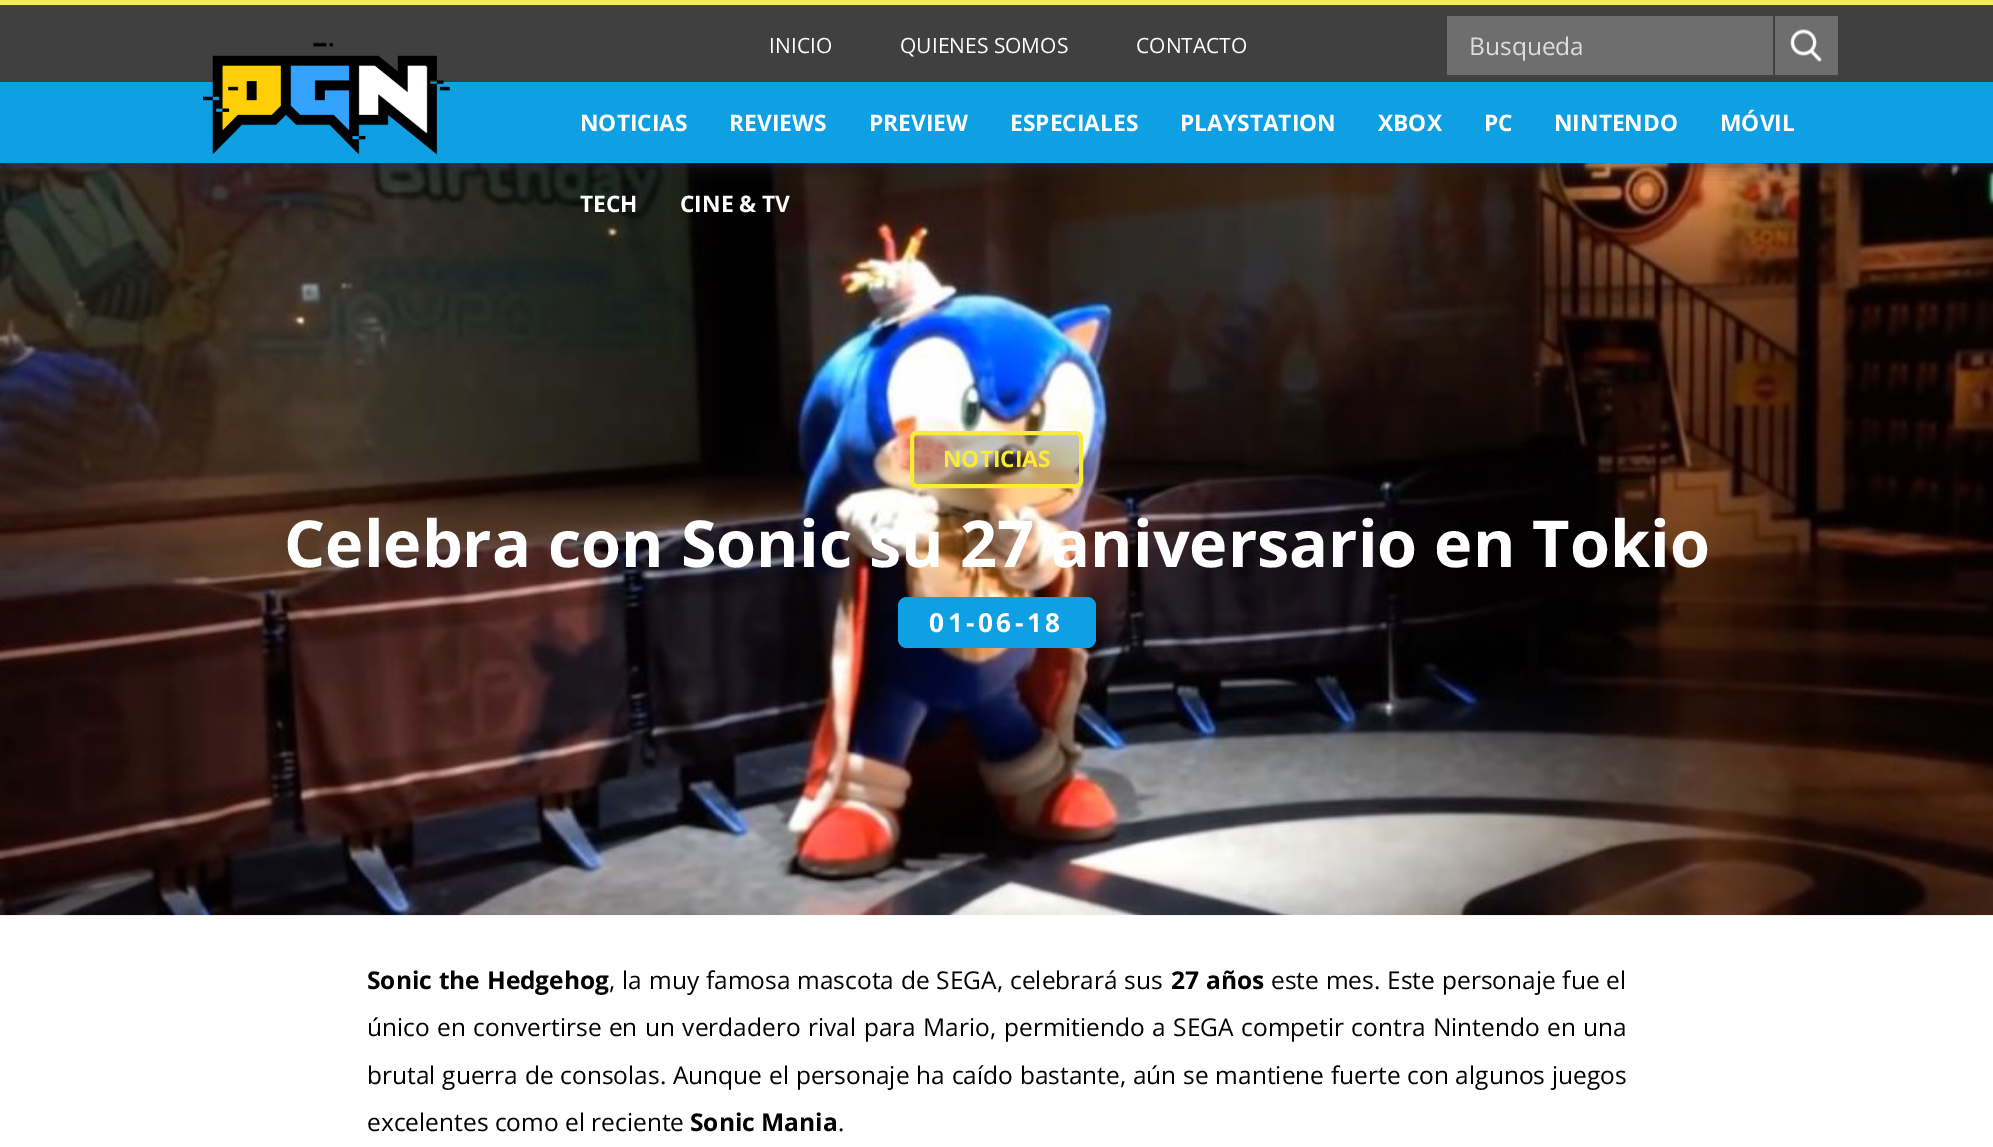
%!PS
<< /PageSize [1993 1147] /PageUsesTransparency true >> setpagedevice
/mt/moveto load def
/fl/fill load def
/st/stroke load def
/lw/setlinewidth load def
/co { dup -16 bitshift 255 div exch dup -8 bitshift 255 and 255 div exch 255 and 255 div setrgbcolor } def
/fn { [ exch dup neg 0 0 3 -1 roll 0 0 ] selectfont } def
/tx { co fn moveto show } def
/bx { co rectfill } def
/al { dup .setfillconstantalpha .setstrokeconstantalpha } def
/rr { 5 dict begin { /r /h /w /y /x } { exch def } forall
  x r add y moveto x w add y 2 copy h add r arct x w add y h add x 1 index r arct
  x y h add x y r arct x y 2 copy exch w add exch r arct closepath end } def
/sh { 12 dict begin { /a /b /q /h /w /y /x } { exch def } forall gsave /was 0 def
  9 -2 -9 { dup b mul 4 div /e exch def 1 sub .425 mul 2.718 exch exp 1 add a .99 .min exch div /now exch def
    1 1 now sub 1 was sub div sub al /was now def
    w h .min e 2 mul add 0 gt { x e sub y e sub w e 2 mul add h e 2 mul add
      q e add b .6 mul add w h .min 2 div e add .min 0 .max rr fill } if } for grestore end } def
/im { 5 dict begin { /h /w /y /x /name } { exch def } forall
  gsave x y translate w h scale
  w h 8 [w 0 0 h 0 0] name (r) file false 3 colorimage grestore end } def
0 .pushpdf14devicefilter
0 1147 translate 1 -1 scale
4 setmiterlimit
0 0 1993 1147 16#FFFFFF bx
(media/3.raw) 0 163 1993 753 im
16#333333 co
0 0 1993 161 0 9 1 sh
0 5 1993 77 16#404041 bx
0 0 1993 5 16#F4EA5A bx
16#101010 co
0 91 1993 81 0 11.5 .18 sh
0 82 1993 81 16#0F9FE3 bx
(media/1.raw) 203 42 247 113 im
1447 16 326 59 16#6E6E6F bx
1775 16 63 59 16#6E6E6F bx
(media/2.raw) 1790 29 32 33 im
0.31 al
16#404041 co
912 433 169 53 5 rr fl
1 al
16#F9EC37 co
4 lw
912 433 169 53 5 rr st
16#0F9FE3 co
898 597 198 51 9 rr fl
(INICIO) 769 53 /OpenSans-Regular 21 16#FFFFFF tx
(QUIENES SOMOS) 900 53 /OpenSans-Regular 21 16#FFFFFF tx
(CONTACTO) 1136 53 /OpenSans-Regular 21 16#FFFFFF tx
(Busqueda) 1469 55 /OpenSans-Regular 24.5 16#DDDDDD tx
(NOTICIAS) 580 131 /OpenSans-Bold 22.75 16#FFFFFF tx
(REVIEWS) 729 131 /OpenSans-Bold 22.75 16#FFFFFF tx
(PREVIEW) 869 131 /OpenSans-Bold 22.75 16#FFFFFF tx
(ESPECIALES) 1010 131 /OpenSans-Bold 22.75 16#FFFFFF tx
(PLAYSTATION) 1180 131 /OpenSans-Bold 22.75 16#FFFFFF tx
(XBOX) 1378 131 /OpenSans-Bold 22.75 16#FFFFFF tx
(PC) 1484 131 /OpenSans-Bold 22.75 16#FFFFFF tx
(NINTENDO) 1554 131 /OpenSans-Bold 22.75 16#FFFFFF tx
(MÓVIL) 1720 131 /OpenSans-Bold 22.75 16#FFFFFF tx
(TECH) 580 212 /OpenSans-Bold 22.75 16#FFFFFF tx
(CINE & TV) 680 212 /OpenSans-Bold 22.75 16#FFFFFF tx
(NOTICIAS) 943 467 /OpenSans-Bold 22.75 16#F9EC37 tx
(Celebra con Sonic su 27 aniversario en Tokio) 284 567 /OpenSans-Bold 64.75 16#FFFFFF tx
/OpenSans-Bold 26.25 fn
929 632 mt 3.5 0 (01-06-18) ashow
/OpenSans-Bold 24.5 fn
16#000000 co
367 989 mt .5 0 32 (Sonic the Hedgehog) widthshow
/OpenSans-Regular 24.5 fn
609 989 mt .5 0 32 (, la muy famosa mascota de SEGA, celebrará sus) widthshow
/OpenSans-Bold 24.5 fn
1171 989 mt .5 0 32 (27 años) widthshow
/OpenSans-Regular 24.5 fn
1271 989 mt .5 0 32 (este mes. Este personaje fue el) widthshow
367 1036 mt 1.1 0 32 (único en convertirse en un verdadero rival para Mario, permitiendo a SEGA competir contra Nintendo en una) widthshow
367 1084 mt .4 0 32 (brutal guerra de consolas. Aunque el personaje ha caído bastante, aún se mantiene fuerte con algunos juegos) widthshow
(excelentes como el reciente) 367 1131 /OpenSans-Regular 24.5 16#000000 tx
(Sonic Mania) 690 1131 /OpenSans-Bold 24.5 16#000000 tx
(.) 838 1131 /OpenSans-Regular 24.5 16#000000 tx
.poppdf14devicefilter showpage
